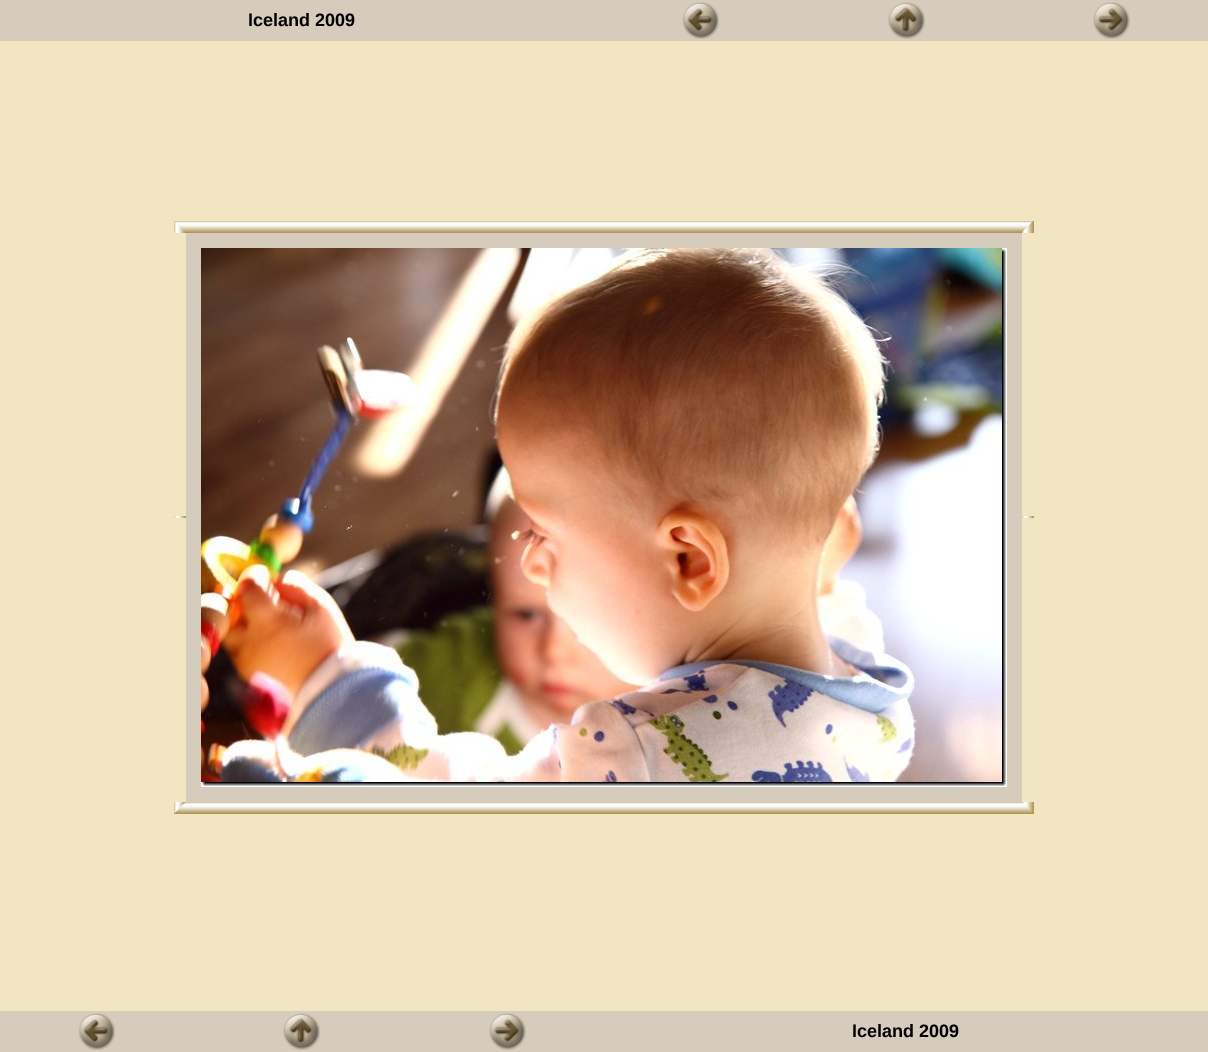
%!PS
<< /PageSize [1208 1052] >> setpagedevice
/co { dup -16 bitshift 255 div exch dup -8 bitshift 255 and 255 div exch 255 and 255 div setrgbcolor } def
/fn { [ exch dup neg 0 0 3 -1 roll 0 0 ] selectfont } def
/tx { co fn moveto show } def
/bx { co rectfill } def
/im { 5 dict begin { /h /w /y /x /name } { exch def } forall
  gsave x y translate w h scale
  w h 8 [w 0 0 h 0 0] name (r) file false 3 colorimage grestore end } def
0 1052 translate 1 -1 scale
4 setmiterlimit
0 0 1208 1052 16#F2E6C2 bx
0 0 1208 41 16#D5CCBB bx
(media/1.raw) 682 2 37 37 im
(media/2.raw) 888 2 37 37 im
(media/3.raw) 1093 2 37 37 im
(media/4.raw) 174 221 12 12 im
(media/5.raw) 186 221 836 12 im
(media/6.raw) 1022 221 12 12 im
(media/7.raw) 174 516 12 2 im
186 233 836 569 16#D5CCBB bx
(media/8.raw) 201 248 806 539 im
(media/9.raw) 1022 516 12 2 im
(media/10.raw) 174 802 12 12 im
(media/11.raw) 186 802 836 12 im
(media/12.raw) 1022 802 12 12 im
0 1011 1208 41 16#D5CCBB bx
(media/1.raw) 78 1013 37 37 im
(media/2.raw) 283 1013 37 37 im
(media/3.raw) 489 1013 37 37 im
(Iceland 2009) 248 26 /LiberationSans-Bold 18 16#000000 tx
(Iceland 2009) 852 1037 /LiberationSans-Bold 18 16#000000 tx
showpage
